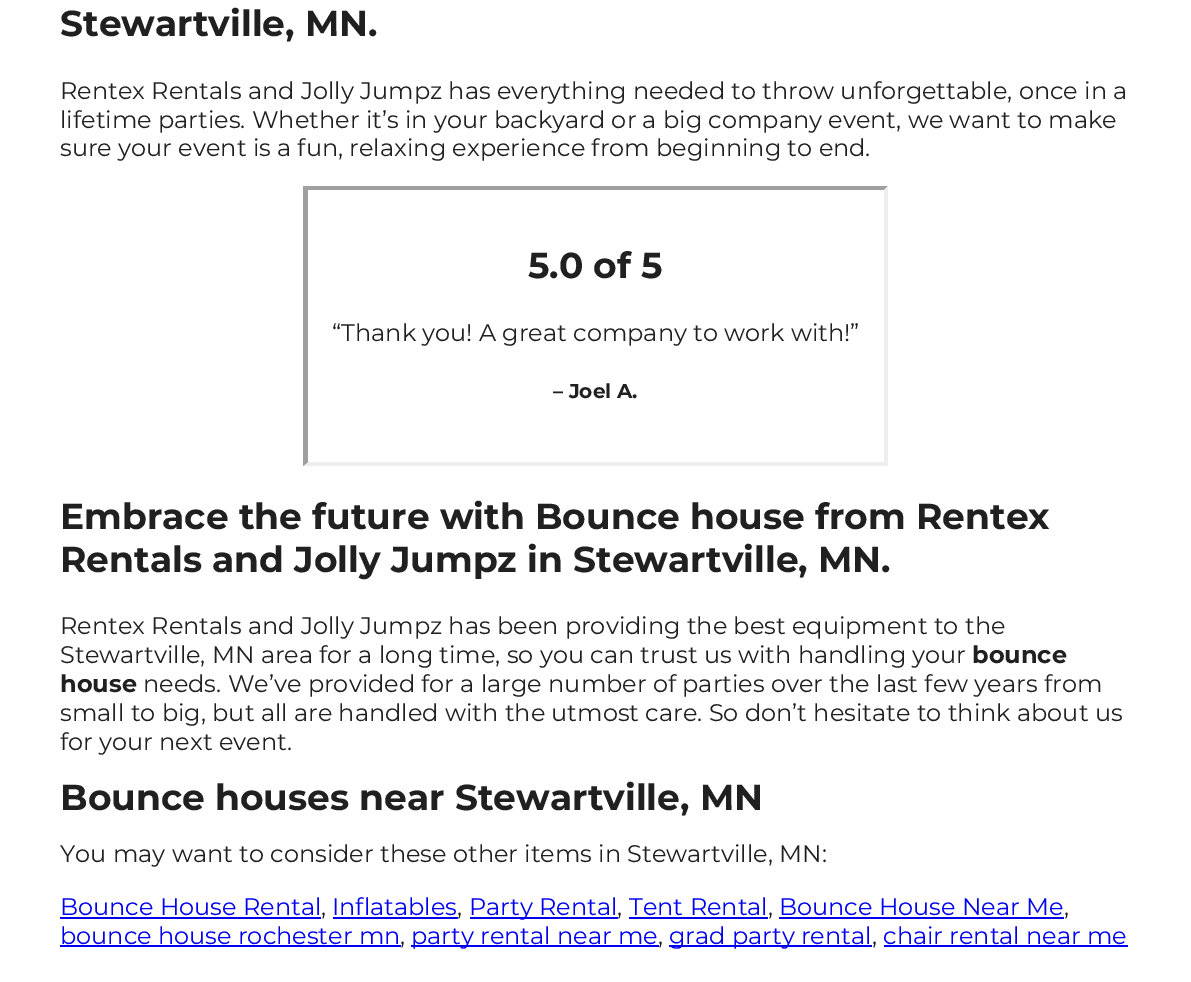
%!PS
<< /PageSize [1191 982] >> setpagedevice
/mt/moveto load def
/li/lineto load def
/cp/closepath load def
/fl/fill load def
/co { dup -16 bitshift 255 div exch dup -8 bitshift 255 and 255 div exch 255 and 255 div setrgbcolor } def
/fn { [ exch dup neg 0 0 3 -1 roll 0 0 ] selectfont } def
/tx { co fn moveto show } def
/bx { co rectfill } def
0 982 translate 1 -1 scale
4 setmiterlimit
0 0 1191 982 16#FFFFFF bx
16#9F9F9F co
303 186 mt 888 186 li 884 190 li 308 190 li cp fl
16#EEEEEE co
888 186 mt 888 466 li 884 462 li 884 190 li cp fl
888 466 mt 303 466 li 308 462 li 884 462 li cp fl
16#9F9F9F co
303 466 mt 303 186 li 308 190 li 308 462 li cp fl
60 917 261 2 16#0000EE bx
333 917 125 2 16#0000EE bx
470 917 148 2 16#0000EE bx
629 917 139 2 16#0000EE bx
779 917 285 2 16#0000EE bx
60 945 341 2 16#0000EE bx
411 945 248 2 16#0000EE bx
669 945 203 2 16#0000EE bx
884 945 244 2 16#0000EE bx
(Stewartville, MN.) 60 36 /Montserrat-Bold 36 16#202020 tx
(Rentex Rentals and Jolly Jumpz has everything needed to throw unforgettable, once in a) 60 99 /Montserrat-Regular 24 16#202020 tx
(lifetime parties. Whether it’s in your backyard or a big company event, we want to make) 60 128 /Montserrat-Regular 24 16#202020 tx
(sure your event is a fun, relaxing experience from beginning to end.) 60 156 /Montserrat-Regular 24 16#202020 tx
(5.0 of 5) 528 278 /Montserrat-Bold 36 16#202020 tx
(“Thank you! A great company to work with!”) 332 341 /Montserrat-Regular 24 16#202020 tx
(– Joel A.) 553 398 /Montserrat-Bold 20 16#202020 tx
(Embrace the future with Bounce house from Rentex) 60 529 /Montserrat-Bold 36 16#202020 tx
(Rentals and Jolly Jumpz in Stewartville, MN.) 60 572 /Montserrat-Bold 36 16#202020 tx
(Rentex Rentals and Jolly Jumpz has been providing the best equipment to the) 60 634 /Montserrat-Regular 24 16#202020 tx
(Stewartville, MN area for a long time, so you can trust us with handling your) 60 663 /Montserrat-Regular 24 16#202020 tx
(bounce) 972 663 /Montserrat-Bold 24 16#202020 tx
(house) 60 692 /Montserrat-Bold 24 16#202020 tx
(needs. We’ve provided for a large number of parties over the last few years from) 143 692 /Montserrat-Regular 24 16#202020 tx
(small to big, but all are handled with the utmost care. So don’t hesitate to think about us) 60 721 /Montserrat-Regular 24 16#202020 tx
(for your next event.) 60 750 /Montserrat-Regular 24 16#202020 tx
(Bounce houses near Stewartville, MN) 60 810 /Montserrat-Bold 36 16#202020 tx
(You may want to consider these other items in Stewartville, MN:) 60 862 /Montserrat-Regular 24 16#202020 tx
(Bounce House Rental) 60 915 /Montserrat-Regular 24 16#0000EE tx
(,) 321 915 /Montserrat-Regular 24 16#202020 tx
(Inflatables) 332 915 /Montserrat-Regular 24 16#0000EE tx
(,) 457 915 /Montserrat-Regular 24 16#202020 tx
(Party Rental) 469 915 /Montserrat-Regular 24 16#0000EE tx
(,) 617 915 /Montserrat-Regular 24 16#202020 tx
(Tent Rental) 629 915 /Montserrat-Regular 24 16#0000EE tx
(,) 768 915 /Montserrat-Regular 24 16#202020 tx
(Bounce House Near Me) 779 915 /Montserrat-Regular 24 16#0000EE tx
(,) 1064 915 /Montserrat-Regular 24 16#202020 tx
(bounce house rochester mn) 60 944 /Montserrat-Regular 24 16#0000EE tx
(,) 400 944 /Montserrat-Regular 24 16#202020 tx
(party rental near me) 411 944 /Montserrat-Regular 24 16#0000EE tx
(,) 658 944 /Montserrat-Regular 24 16#202020 tx
(grad party rental) 669 944 /Montserrat-Regular 24 16#0000EE tx
(,) 872 944 /Montserrat-Regular 24 16#202020 tx
(chair rental near me) 883 944 /Montserrat-Regular 24 16#0000EE tx
showpage
